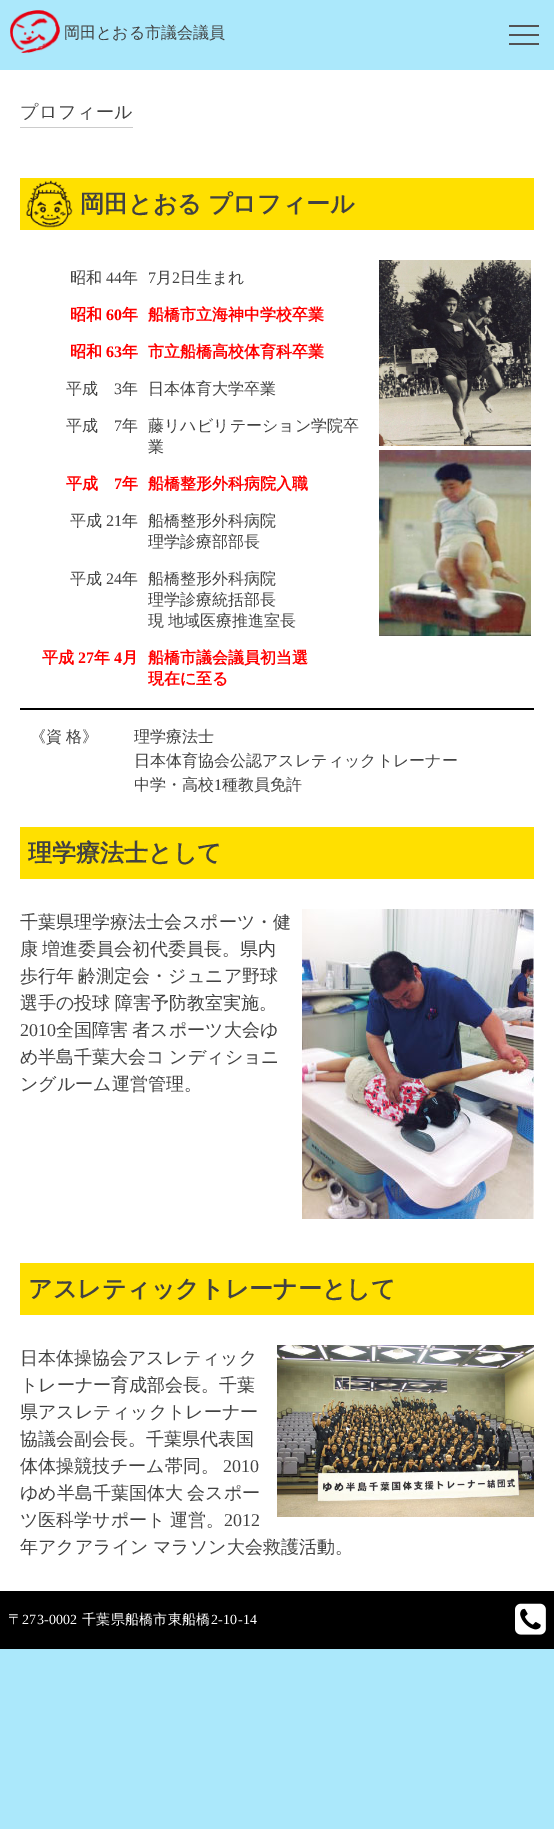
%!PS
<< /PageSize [554 1829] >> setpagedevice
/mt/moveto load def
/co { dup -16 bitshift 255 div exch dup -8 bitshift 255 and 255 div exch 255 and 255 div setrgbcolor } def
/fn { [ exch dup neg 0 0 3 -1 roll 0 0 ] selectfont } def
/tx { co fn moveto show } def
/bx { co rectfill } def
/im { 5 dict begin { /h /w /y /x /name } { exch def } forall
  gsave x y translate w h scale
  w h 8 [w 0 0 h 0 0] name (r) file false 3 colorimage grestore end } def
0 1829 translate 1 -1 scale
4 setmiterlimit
0 0 554 1829 16#ABE8FB bx
(media/1.raw) 10 10 50 43 im
509 34 30 2 16#535353 bx
509 25 30 2 16#535353 bx
509 43 30 2 16#535353 bx
0 70 554 1521 16#FFFFFF bx
20 127 113 1 16#CCCCCC bx
20 178 514 52 16#FFE000 bx
(media/2.raw) 26 180 47 48 im
(media/3.raw) 379 260 152 186 im
(media/4.raw) 379 450 152 186 im
20 708 514 2 16#000000 bx
20 827 514 52 16#FFE000 bx
(media/5.raw) 302 909 232 310 im
20 1263 514 52 16#FFE000 bx
(media/6.raw) 277 1345 257 172 im
0 1591 554 58 16#000000 bx
(media/7.raw) 515 1603 31 32 im
(岡田とおる市議会議員) 64 38 /WenQuanYiZenHei-Medium 16 16#424242 tx
/WenQuanYiZenHei-Medium 18 fn
20 118 mt .5 0 (プロフィール) ashow
/WenQuanYiZenHei-Bold 24 fn
80 212 mt -1 0 32 (岡田とおる プロフィール) widthshow
(昭和) 70 283 /WenQuanYiZenHei-Medium 16 16#424242 tx
(44) 106 283 /LiberationSerif-Regular 16 16#424242 tx
(年) 122 283 /WenQuanYiZenHei-Medium 16 16#424242 tx
(7) 148 283 /LiberationSerif-Regular 16 16#424242 tx
(月) 156 283 /WenQuanYiZenHei-Medium 16 16#424242 tx
(2) 172 283 /LiberationSerif-Regular 16 16#424242 tx
(日生まれ) 180 283 /WenQuanYiZenHei-Medium 16 16#424242 tx
(昭和) 70 320 /WenQuanYiZenHei-Bold 16 16#FF0000 tx
(60) 106 320 /LiberationSerif-Bold 16 16#FF0000 tx
(年) 122 320 /WenQuanYiZenHei-Bold 16 16#FF0000 tx
(船橋市立海神中学校卒業) 148 320 /WenQuanYiZenHei-Bold 16 16#FF0000 tx
(昭和) 70 357 /WenQuanYiZenHei-Bold 16 16#FF0000 tx
(63) 106 357 /LiberationSerif-Bold 16 16#FF0000 tx
(年) 122 357 /WenQuanYiZenHei-Bold 16 16#FF0000 tx
(市立船橋高校体育科卒業) 148 357 /WenQuanYiZenHei-Bold 16 16#FF0000 tx
(平成) 66 394 /WenQuanYiZenHei-Medium 16 16#424242 tx
(3) 114 394 /LiberationSerif-Regular 16 16#424242 tx
(年) 122 394 /WenQuanYiZenHei-Medium 16 16#424242 tx
(日本体育大学卒業) 148 394 /WenQuanYiZenHei-Medium 16 16#424242 tx
(平成) 66 431 /WenQuanYiZenHei-Medium 16 16#424242 tx
(7) 114 431 /LiberationSerif-Regular 16 16#424242 tx
(年) 122 431 /WenQuanYiZenHei-Medium 16 16#424242 tx
(藤リハビリテーション学院卒) 148 431 /WenQuanYiZenHei-Medium 16 16#424242 tx
(業) 148 452 /WenQuanYiZenHei-Medium 16 16#424242 tx
(平成) 66 489 /WenQuanYiZenHei-Bold 16 16#FF0000 tx
(7) 114 489 /LiberationSerif-Bold 16 16#FF0000 tx
(年) 122 489 /WenQuanYiZenHei-Bold 16 16#FF0000 tx
(船橋整形外科病院入職) 148 489 /WenQuanYiZenHei-Bold 16 16#FF0000 tx
(平成) 70 526 /WenQuanYiZenHei-Medium 16 16#424242 tx
(21) 106 526 /LiberationSerif-Regular 16 16#424242 tx
(年) 122 526 /WenQuanYiZenHei-Medium 16 16#424242 tx
(船橋整形外科病院) 148 526 /WenQuanYiZenHei-Medium 16 16#424242 tx
(理学診療部部長) 148 547 /WenQuanYiZenHei-Medium 16 16#424242 tx
(平成) 70 584 /WenQuanYiZenHei-Medium 16 16#424242 tx
(24) 106 584 /LiberationSerif-Regular 16 16#424242 tx
(年) 122 584 /WenQuanYiZenHei-Medium 16 16#424242 tx
(船橋整形外科病院) 148 584 /WenQuanYiZenHei-Medium 16 16#424242 tx
(理学診療統括部長) 148 605 /WenQuanYiZenHei-Medium 16 16#424242 tx
148 626 mt -1 0 32 (現 地域医療推進室長) widthshow
(平成) 42 663 /WenQuanYiZenHei-Bold 16 16#FF0000 tx
(27) 78 663 /LiberationSerif-Bold 16 16#FF0000 tx
(年) 94 663 /WenQuanYiZenHei-Bold 16 16#FF0000 tx
(4) 114 663 /LiberationSerif-Bold 16 16#FF0000 tx
(月) 122 663 /WenQuanYiZenHei-Bold 16 16#FF0000 tx
(船橋市議会議員初当選) 148 663 /WenQuanYiZenHei-Bold 16 16#FF0000 tx
(現在に至る) 148 684 /WenQuanYiZenHei-Bold 16 16#FF0000 tx
/WenQuanYiZenHei-Medium 16 fn
16#424242 co
30 742 mt -1 0 32 (《資 格》) widthshow
(理学療法士) 134 742 /WenQuanYiZenHei-Medium 16 16#424242 tx
(日本体育協会公認アスレティックトレーナー) 134 766 /WenQuanYiZenHei-Medium 16 16#424242 tx
(中学・高校) 134 790 /WenQuanYiZenHei-Medium 16 16#424242 tx
(1) 214 790 /LiberationSerif-Regular 16 16#424242 tx
(種教員免許) 222 790 /WenQuanYiZenHei-Medium 16 16#424242 tx
(理学療法士として) 28 861 /WenQuanYiZenHei-Bold 24 16#424242 tx
(千葉県理学療法士会スポーツ・健) 20 928 /WenQuanYiZenHei-Medium 18 16#424242 tx
20 955 mt -1 0 32 (康 増進委員会初代委員長。県内) widthshow
20 982 mt -1 0 32 (歩行年 齢測定会・ジュニア野球) widthshow
20 1009 mt -1 0 32 (選手の投球 障害予防教室実施。) widthshow
(2010) 20 1036 /LiberationSerif-Regular 18 16#424242 tx
/WenQuanYiZenHei-Medium 18 fn
56 1036 mt -1 0 32 (全国障害 者スポーツ大会ゆ) widthshow
20 1063 mt -1 0 32 (め半島千葉大会コ ンディショニ) widthshow
(ングルーム運営管理。) 20 1090 /WenQuanYiZenHei-Medium 18 16#424242 tx
(アスレティックトレーナーとして) 28 1297 /WenQuanYiZenHei-Bold 24 16#424242 tx
(日本体操協会アスレティック) 20 1364 /WenQuanYiZenHei-Medium 18 16#424242 tx
(トレーナー育成部会長。千葉) 20 1391 /WenQuanYiZenHei-Medium 18 16#424242 tx
(県アスレティックトレーナー) 20 1418 /WenQuanYiZenHei-Medium 18 16#424242 tx
(協議会副会長。千葉県代表国) 20 1445 /WenQuanYiZenHei-Medium 18 16#424242 tx
(体体操競技チーム帯同。) 20 1472 /WenQuanYiZenHei-Medium 18 16#424242 tx
(2010) 223 1472 /LiberationSerif-Regular 18 16#424242 tx
/WenQuanYiZenHei-Medium 18 fn
20 1499 mt -1 0 32 (ゆめ半島千葉国体大 会スポー) widthshow
20 1526 mt -1 0 32 (ツ医科学サポート 運営。) widthshow
(2012) 224 1526 /LiberationSerif-Regular 18 16#424242 tx
/WenQuanYiZenHei-Medium 18 fn
20 1553 mt -1 0 32 (年アクアライン マラソン大会救護活動。) widthshow
/WenQuanYiZenHei-Medium 14 fn
16#FFFFFF co
8 1624 mt .25 0 (〒) ashow
/LiberationSerif-Regular 14 fn
22 1624 mt .25 0 (273-0002) ashow
/WenQuanYiZenHei-Medium 14 fn
82 1624 mt .25 0 (千葉県船橋市東船橋) ashow
/LiberationSerif-Regular 14 fn
211 1624 mt .25 0 (2-10-14) ashow
showpage
